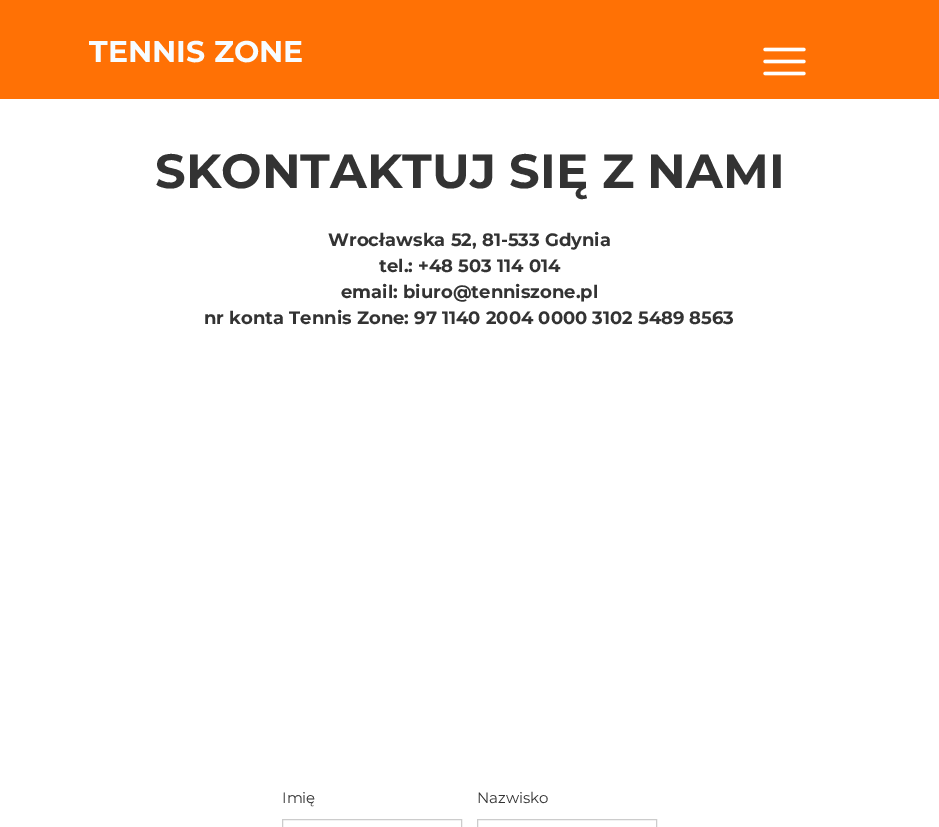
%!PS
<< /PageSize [939 827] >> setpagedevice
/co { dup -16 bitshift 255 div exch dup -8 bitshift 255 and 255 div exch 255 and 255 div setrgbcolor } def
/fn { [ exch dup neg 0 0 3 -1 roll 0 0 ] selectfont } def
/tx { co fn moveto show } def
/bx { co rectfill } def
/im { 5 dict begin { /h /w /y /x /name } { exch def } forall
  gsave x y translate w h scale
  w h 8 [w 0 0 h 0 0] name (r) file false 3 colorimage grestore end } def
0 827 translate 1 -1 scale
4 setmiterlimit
0 0 939 827 16#FFFFFF bx
0 0 939 99 16#FF7105 bx
(media/1.raw) 763 47 43 29 im
16#CCCCCC co
282.5 819.5 179 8 rectstroke
477.5 819.5 179 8 rectstroke
(TENNIS ZONE) 89 62 /Montserrat-Bold 30 16#F7FCFF tx
(SKONTAKTUJ SIĘ Z NAMI) 155 188 /Montserrat-Bold 48 16#333333 tx
(Wrocławska 52, 81-533 Gdynia) 328 246 /Montserrat-Bold 18 16#333333 tx
(tel.: +48 503 114 014) 379 272 /Montserrat-Bold 18 16#333333 tx
(email: biuro@tenniszone.pl) 341 298 /Montserrat-Bold 18 16#333333 tx
(nr konta Tennis Zone: 97 1140 2004 0000 3102 5489 8563) 204 324 /Montserrat-Bold 18 16#333333 tx
(Imię) 282 803 /Montserrat-Regular 15 16#333333 tx
(Nazwisko) 477 803 /Montserrat-Regular 15 16#333333 tx
showpage
